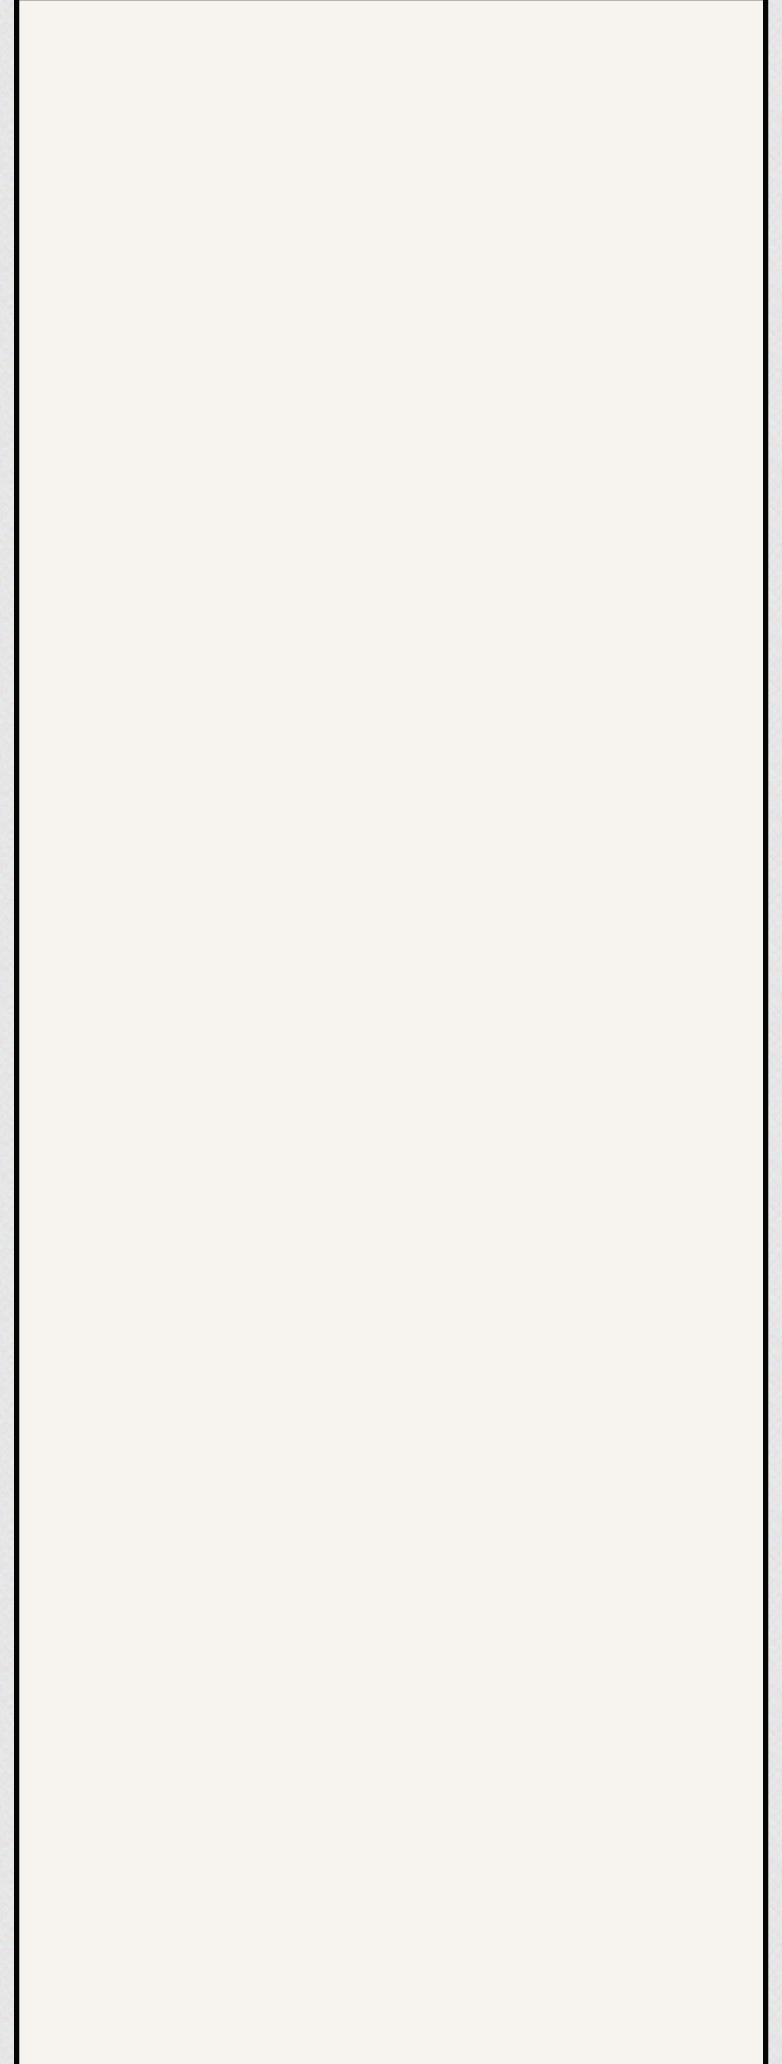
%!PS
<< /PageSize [782 2064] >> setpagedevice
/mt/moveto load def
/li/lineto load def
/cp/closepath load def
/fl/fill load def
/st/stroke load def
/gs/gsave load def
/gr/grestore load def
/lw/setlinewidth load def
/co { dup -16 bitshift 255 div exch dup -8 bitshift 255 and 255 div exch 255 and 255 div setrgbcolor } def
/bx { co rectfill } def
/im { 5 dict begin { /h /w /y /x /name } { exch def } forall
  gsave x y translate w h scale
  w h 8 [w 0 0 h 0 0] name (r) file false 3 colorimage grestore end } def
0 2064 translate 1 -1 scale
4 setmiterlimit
0 0 782 2064 16#FFFFFF bx
(media/1.raw) 0 0 782 2064 im
16#F7F3EE co
16.5 -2.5 mt 765.5 -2.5 li 765.5 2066.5 li 16.5 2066.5 li cp gs fl gr
16#050505 co
5 lw
st
showpage
